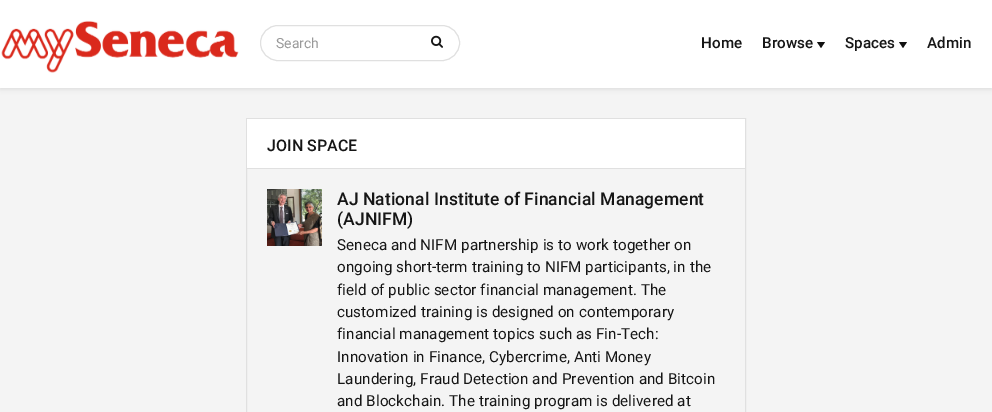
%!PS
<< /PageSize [992 412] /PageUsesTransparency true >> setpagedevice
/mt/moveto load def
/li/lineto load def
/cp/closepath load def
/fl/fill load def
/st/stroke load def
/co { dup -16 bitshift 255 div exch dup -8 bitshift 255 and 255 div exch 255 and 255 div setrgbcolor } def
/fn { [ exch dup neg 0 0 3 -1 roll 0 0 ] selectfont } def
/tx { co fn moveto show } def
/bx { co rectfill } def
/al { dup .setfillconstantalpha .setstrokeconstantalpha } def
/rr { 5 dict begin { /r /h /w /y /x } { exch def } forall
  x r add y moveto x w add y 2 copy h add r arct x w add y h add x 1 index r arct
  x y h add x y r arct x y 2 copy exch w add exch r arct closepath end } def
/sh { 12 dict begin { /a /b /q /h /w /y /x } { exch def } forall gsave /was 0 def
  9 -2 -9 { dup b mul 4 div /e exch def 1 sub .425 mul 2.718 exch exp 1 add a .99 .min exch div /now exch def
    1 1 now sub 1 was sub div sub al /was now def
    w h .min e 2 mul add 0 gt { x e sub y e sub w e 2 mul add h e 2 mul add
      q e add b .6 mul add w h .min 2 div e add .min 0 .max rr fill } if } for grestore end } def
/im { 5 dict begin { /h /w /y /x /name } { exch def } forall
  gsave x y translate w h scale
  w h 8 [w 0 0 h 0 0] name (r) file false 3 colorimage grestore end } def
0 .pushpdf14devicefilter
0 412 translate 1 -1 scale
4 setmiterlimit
0 0 992 412 16#F4F4F4 bx
16#000000 co
0 1 992 88 0 2.5 .1 sh
0 0 992 88 16#FFFFFF bx
(media/1.raw) 1 20 238 53 im
16#E0E0E0 co
260.5 25.5 199 35 17.5 rr st
(media/2.raw) 431 35 12 13 im
16#111111 co
817 42 mt 825 42 li 821 48 li cp fl
899 42 mt 907 42 li 903 48 li cp fl
16#E0E0E0 co
246.5 118.5 499 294 rectstroke
247 119 498 49 16#FFFFFF bx
247 168 498 1 16#E0E0E0 bx
(media/3.raw) 267 189 55 57 im
(Search) 276 48 /Roboto-Regular 14 16#999999 tx
/Roboto-Medium 15.2 fn
16#161616 co
701 48 mt .08 0 (Home) ashow
762 48 mt .08 0 (Browse) ashow
845 48 mt .08 0 (Spaces) ashow
927 48 mt .08 0 (Admin) ashow
/Roboto-Medium 16 fn
267 151 mt .08 0 (JOIN SPACE) ashow
/Roboto-Medium 17.5 fn
337 205 mt .08 0 (AJ National Institute of Financial Management) ashow
337 225 mt .08 0 (\(AJNIFM\)) ashow
/Roboto-Regular 15.2 fn
337 250 mt .08 0 (Seneca and NIFM partnership is to work together on) ashow
337 272 mt .08 0 (ongoing short-term training to NIFM participants, in the) ashow
337 295 mt .08 0 (field of public sector financial management. The) ashow
337 317 mt .08 0 (customized training is designed on contemporary) ashow
337 339 mt .08 0 (financial management topics such as Fin-Tech:) ashow
337 362 mt .08 0 (Innovation in Finance, Cybercrime, Anti Money) ashow
337 384 mt .08 0 (Laundering, Fraud Detection and Prevention and Bitcoin) ashow
337 406 mt .08 0 (and Blockchain. The training program is delivered at) ashow
.poppdf14devicefilter showpage
